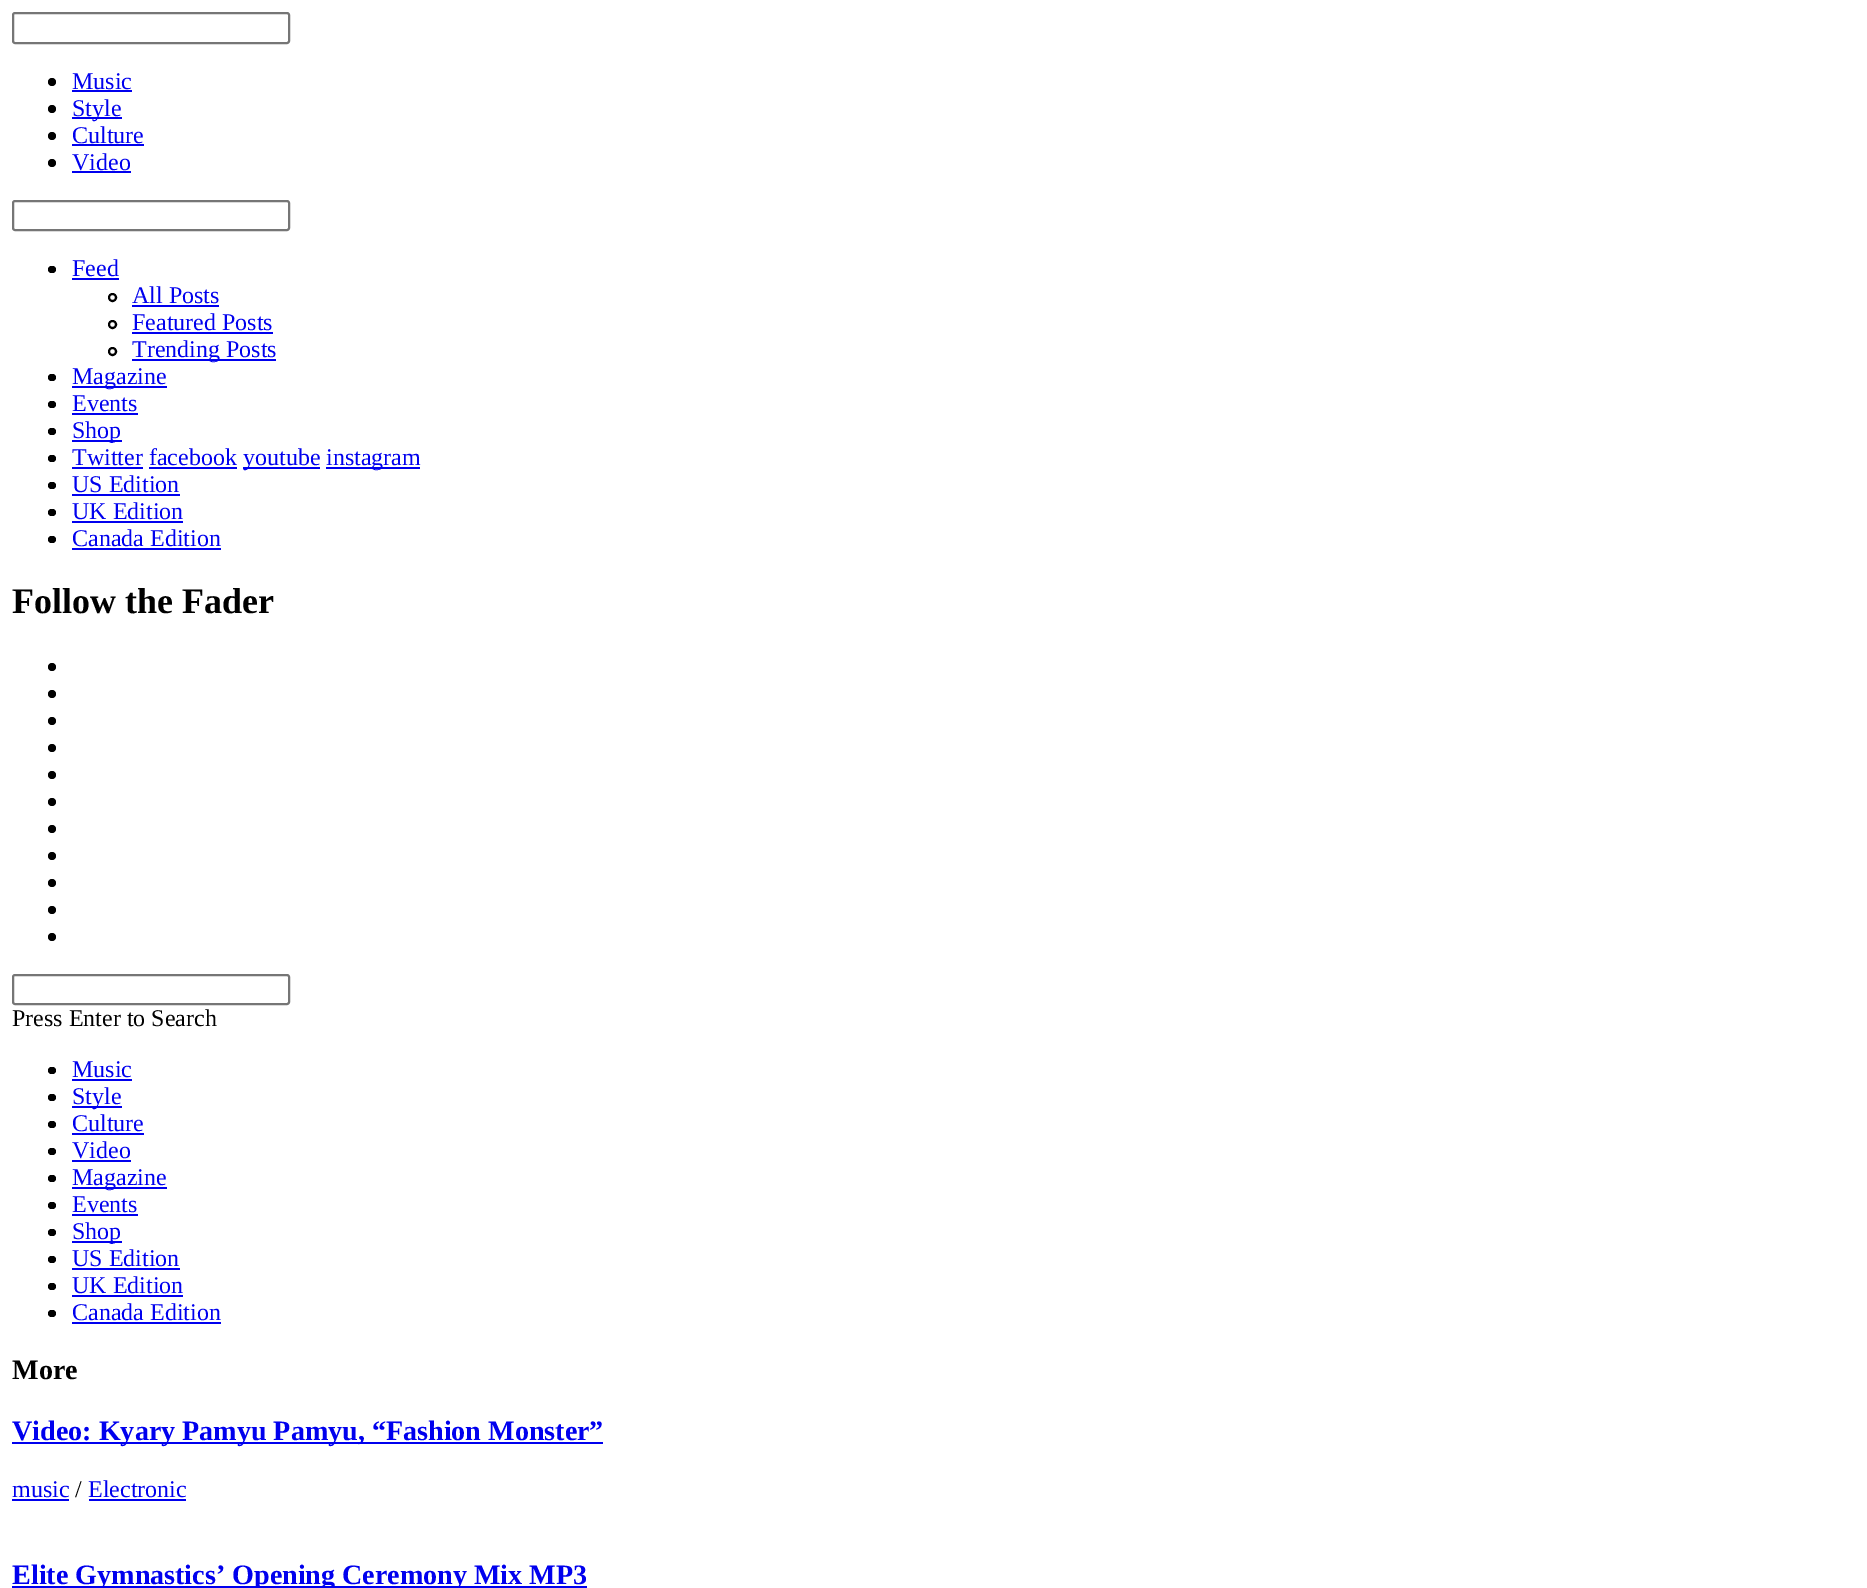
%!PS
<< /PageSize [1867 1588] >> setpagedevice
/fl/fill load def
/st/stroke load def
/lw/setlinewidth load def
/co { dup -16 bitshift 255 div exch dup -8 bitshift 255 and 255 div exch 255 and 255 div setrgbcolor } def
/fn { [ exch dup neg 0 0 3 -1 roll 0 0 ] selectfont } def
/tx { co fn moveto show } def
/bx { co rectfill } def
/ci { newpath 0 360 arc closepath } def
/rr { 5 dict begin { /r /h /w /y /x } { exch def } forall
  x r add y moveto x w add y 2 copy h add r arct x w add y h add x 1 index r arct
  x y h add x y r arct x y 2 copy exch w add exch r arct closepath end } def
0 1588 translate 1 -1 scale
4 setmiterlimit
0 0 1867 1588 16#FFFFFF bx
16#767676 co
2 lw
13 13 276 30 2 rr st
16#000000 co
52 82 4 ci fl
72 90 60 2 16#0000EE bx
16#000000 co
52 109 4 ci fl
72 117 50 2 16#0000EE bx
16#000000 co
52 136 4 ci fl
72 144 72 2 16#0000EE bx
16#000000 co
52 163 4 ci fl
72 171 59 2 16#0000EE bx
16#767676 co
13 201 276 29 2 rr st
16#000000 co
48 266 8 7 3.5 rr fl
72 278 47 2 16#0000EE bx
16#000000 co
112.5 297.5 3.5 ci st
132 305 87 2 16#0000EE bx
16#000000 co
112.5 324.5 3.5 ci st
132 332 141 2 16#0000EE bx
16#000000 co
112.5 351.5 3.5 ci st
132 359 144 2 16#0000EE bx
16#000000 co
48 374 8 7 3.5 rr fl
72 386 95 2 16#0000EE bx
16#000000 co
48 401 8 7 3.5 rr fl
72 413 66 2 16#0000EE bx
16#000000 co
48 428 8 7 3.5 rr fl
72 440 50 2 16#0000EE bx
16#000000 co
48 455 8 7 3.5 rr fl
72 467 71 2 16#0000EE bx
243 467 77 2 16#0000EE bx
326 467 94 2 16#0000EE bx
149 467 88 2 16#0000EE bx
16#000000 co
48 482 8 7 3.5 rr fl
72 494 108 2 16#0000EE bx
16#000000 co
48 509 8 7 3.5 rr fl
72 521 111 2 16#0000EE bx
16#000000 co
48 536 8 7 3.5 rr fl
72 548 149 2 16#0000EE bx
16#000000 co
52 667 4 ci fl
52 694 4 ci fl
52 721 4 ci fl
52 748 4 ci fl
52 775 4 ci fl
52 802 4 ci fl
52 829 4 ci fl
52 856 4 ci fl
52 883 4 ci fl
52 910 4 ci fl
52 937 4 ci fl
16#767676 co
13 975 276 29 2 rr st
16#000000 co
48 1067 8 7 3.5 rr fl
72 1079 60 2 16#0000EE bx
16#000000 co
48 1094 8 7 3.5 rr fl
72 1106 50 2 16#0000EE bx
16#000000 co
48 1121 8 7 3.5 rr fl
72 1133 72 2 16#0000EE bx
16#000000 co
48 1148 8 7 3.5 rr fl
72 1160 59 2 16#0000EE bx
16#000000 co
48 1175 8 7 3.5 rr fl
72 1187 95 2 16#0000EE bx
16#000000 co
48 1202 8 7 3.5 rr fl
72 1214 66 2 16#0000EE bx
16#000000 co
48 1229 8 7 3.5 rr fl
72 1241 50 2 16#0000EE bx
16#000000 co
48 1256 8 7 3.5 rr fl
72 1268 108 2 16#0000EE bx
16#000000 co
48 1283 8 7 3.5 rr fl
72 1295 111 2 16#0000EE bx
16#000000 co
48 1310 8 7 3.5 rr fl
72 1322 149 2 16#0000EE bx
12 1442 591 2 16#0000EE bx
12 1499 57 2 16#0000EE bx
89 1499 97 2 16#0000EE bx
12 1586 575 2 16#0000EE bx
(Music) 72 89 /LiberationSerif-Regular 24 16#0000EE tx
(Style) 72 116 /LiberationSerif-Regular 24 16#0000EE tx
(Culture) 72 143 /LiberationSerif-Regular 24 16#0000EE tx
(Video) 72 170 /LiberationSerif-Regular 24 16#0000EE tx
(Feed) 72 276 /LiberationSerif-Regular 24 16#0000EE tx
(All Posts) 132 303 /LiberationSerif-Regular 24 16#0000EE tx
(Featured Posts) 132 330 /LiberationSerif-Regular 24 16#0000EE tx
(Trending Posts) 132 357 /LiberationSerif-Regular 24 16#0000EE tx
(Magazine) 72 384 /LiberationSerif-Regular 24 16#0000EE tx
(Events) 72 411 /LiberationSerif-Regular 24 16#0000EE tx
(Shop) 72 438 /LiberationSerif-Regular 24 16#0000EE tx
(Twitter facebook) 72 465 /LiberationSerif-Regular 24 16#0000EE tx
(youtube) 243 465 /LiberationSerif-Regular 24 16#0000EE tx
(instagram) 326 465 /LiberationSerif-Regular 24 16#0000EE tx
(US Edition) 72 492 /LiberationSerif-Regular 24 16#0000EE tx
(UK Edition) 72 519 /LiberationSerif-Regular 24 16#0000EE tx
(Canada Edition) 72 546 /LiberationSerif-Regular 24 16#0000EE tx
(Follow the Fader) 12 613 /LiberationSerif-Bold 36 16#000000 tx
(Press Enter to Search) 12 1026 /LiberationSerif-Regular 24 16#000000 tx
(Music) 72 1077 /LiberationSerif-Regular 24 16#0000EE tx
(Style) 72 1104 /LiberationSerif-Regular 24 16#0000EE tx
(Culture) 72 1131 /LiberationSerif-Regular 24 16#0000EE tx
(Video) 72 1158 /LiberationSerif-Regular 24 16#0000EE tx
(Magazine) 72 1185 /LiberationSerif-Regular 24 16#0000EE tx
(Events) 72 1212 /LiberationSerif-Regular 24 16#0000EE tx
(Shop) 72 1239 /LiberationSerif-Regular 24 16#0000EE tx
(US Edition) 72 1266 /LiberationSerif-Regular 24 16#0000EE tx
(UK Edition) 72 1293 /LiberationSerif-Regular 24 16#0000EE tx
(Canada Edition) 72 1320 /LiberationSerif-Regular 24 16#0000EE tx
(More) 12 1379 /LiberationSerif-Bold 28.1 16#000000 tx
(Video: Kyary Pamyu Pamyu, “Fashion Monster”) 12 1440 /LiberationSerif-Bold 28.1 16#0000EE tx
(music) 12 1497 /LiberationSerif-Regular 24 16#0000EE tx
(/) 75 1497 /LiberationSerif-Regular 24 16#000000 tx
(Electronic) 88 1497 /LiberationSerif-Regular 24 16#0000EE tx
(Elite Gymnastics’ Opening Ceremony Mix MP3) 12 1584 /LiberationSerif-Bold 28.1 16#0000EE tx
showpage
